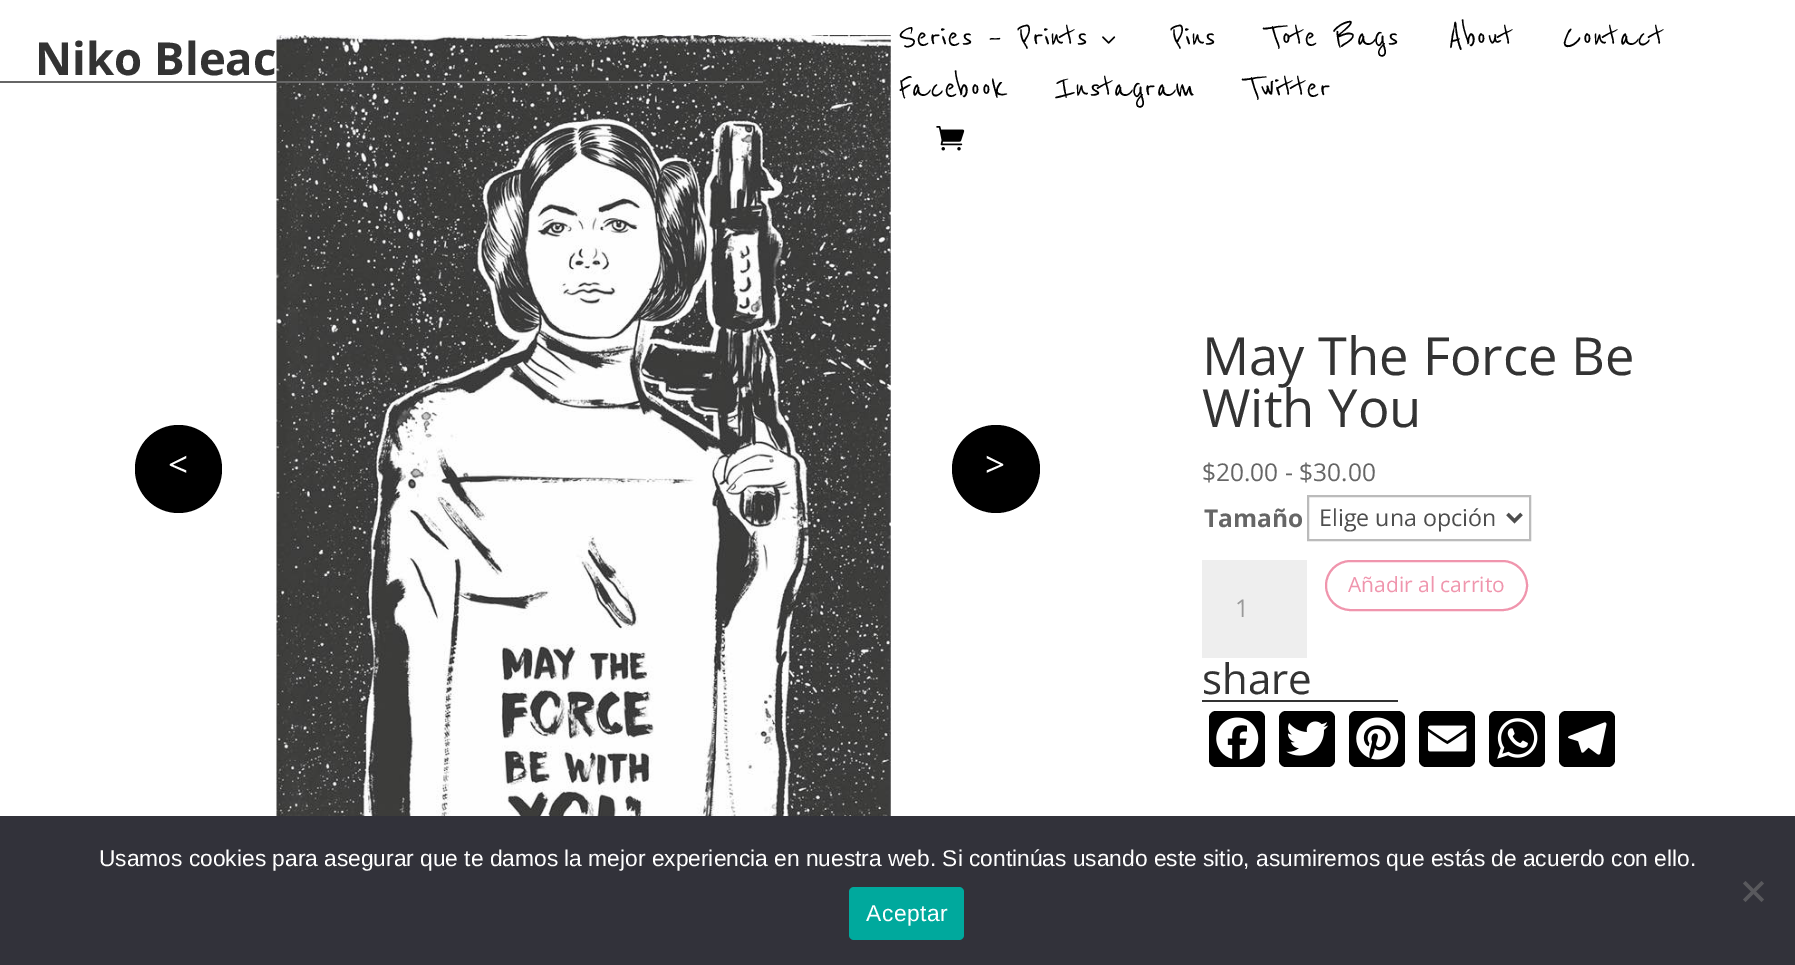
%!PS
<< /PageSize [1795 965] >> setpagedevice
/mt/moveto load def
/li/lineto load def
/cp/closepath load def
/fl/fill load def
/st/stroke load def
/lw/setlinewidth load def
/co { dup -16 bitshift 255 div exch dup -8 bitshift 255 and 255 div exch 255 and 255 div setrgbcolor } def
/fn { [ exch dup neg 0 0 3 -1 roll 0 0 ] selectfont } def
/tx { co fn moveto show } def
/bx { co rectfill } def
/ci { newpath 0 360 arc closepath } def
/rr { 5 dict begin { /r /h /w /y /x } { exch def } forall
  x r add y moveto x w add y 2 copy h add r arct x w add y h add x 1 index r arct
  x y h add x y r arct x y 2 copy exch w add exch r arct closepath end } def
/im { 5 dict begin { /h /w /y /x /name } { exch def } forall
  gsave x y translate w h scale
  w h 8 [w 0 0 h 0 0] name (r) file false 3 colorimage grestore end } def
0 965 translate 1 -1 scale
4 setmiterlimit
0 0 1795 965 16#FFFFFF bx
(media/3.raw) 276 35 615 781 im
0 81 763 2 16#666666 bx
(media/1.raw) 1102 36 14 8 im
(media/2.raw) 936 126 29 25 im
16#000000 co
135 425 87 88 43.5 rr fl
996 469 44 ci fl
16#BBBBBB co
2 lw
1308 496 222 44 rectstroke
16#4E4E4E co
3.5 lw
1507.5 514 mt 1514.5 521 li 1521.5 514 li st
16#F095AD co
2 lw
1326 561 201 49 24.5 rr st
1202 560 105 98 16#EEEEEE bx
1202 700 196 2 16#333333 bx
16#000000 co
1209 711 56 56 7 rr fl
(media/4.raw) 1216 717 43 43 im
1279 711 56 56 7 rr fl
(media/5.raw) 1286 721 43 35 im
1349 711 56 56 7 rr fl
(media/6.raw) 1356 717 43 43 im
1419 711 56 56 7 rr fl
(media/7.raw) 1428 725 39 27 im
1489 711 56 56 7 rr fl
(media/8.raw) 1497 718 41 41 im
1559 711 56 56 7 rr fl
(media/9.raw) 1568 722 39 33 im
0 816 1795 149 16#32323A bx
16#59595D co
1761.5 881 mt 1764 883.5 li 1745.5 902 li 1743 899.5 li cp fl
1743 883.5 mt 1745.5 881 li 1764 899.5 li 1761.5 902 li cp fl
16#00A99D co
849 887 115 53 5 rr fl
(Niko Bleac) 35 75 /OpenSans-Bold 45.5 16#333333 tx
(Series – Prints) 898 47 /ReenieBeanie-Medium 38.5 16#000000 tx
(Pins) 1171 47 /ReenieBeanie-Medium 38.5 16#000000 tx
(Tote Bags) 1265 47 /ReenieBeanie-Medium 38.5 16#000000 tx
(About) 1448 47 /ReenieBeanie-Medium 38.5 16#000000 tx
(Contact) 1562 47 /ReenieBeanie-Medium 38.5 16#000000 tx
(Facebook) 898 98 /ReenieBeanie-Medium 38.5 16#000000 tx
(Instagram) 1055 98 /ReenieBeanie-Medium 38.5 16#000000 tx
(Twitter) 1244 98 /ReenieBeanie-Medium 38.5 16#000000 tx
(<) 168 477 /OpenSans-Regular 35 16#FFFFFF tx
(>) 985 477 /OpenSans-Regular 35 16#FFFFFF tx
(May The Force Be) 1202 375 /OpenSans-Regular 52.5 16#333333 tx
(With You) 1202 427 /OpenSans-Regular 52.5 16#333333 tx
($20.00 - $30.00) 1202 481 /OpenSans-Regular 24.5 16#666666 tx
(Tamaño) 1204 527 /OpenSans-Bold 24.5 16#666666 tx
(Elige una opción) 1319 526 /OpenSans-Regular 23.25 16#4E4E4E tx
(Añadir al carrito) 1348 592 /OpenSans-Regular 21 16#F095AD tx
(1) 1235 617 /OpenSans-Regular 24.5 16#999999 tx
(share) 1202 694 /OpenSans-Regular 42 16#333333 tx
(Usamos cookies para asegurar que te damos la mejor experiencia en nuestra web. Si continúas usando este sitio, asumiremos que estás de acuerdo con ello.) 99 866 /LiberationSans-Regular 22.75 16#FFFFFF tx
866 921 mt .5 0 (Aceptar) ashow
showpage
